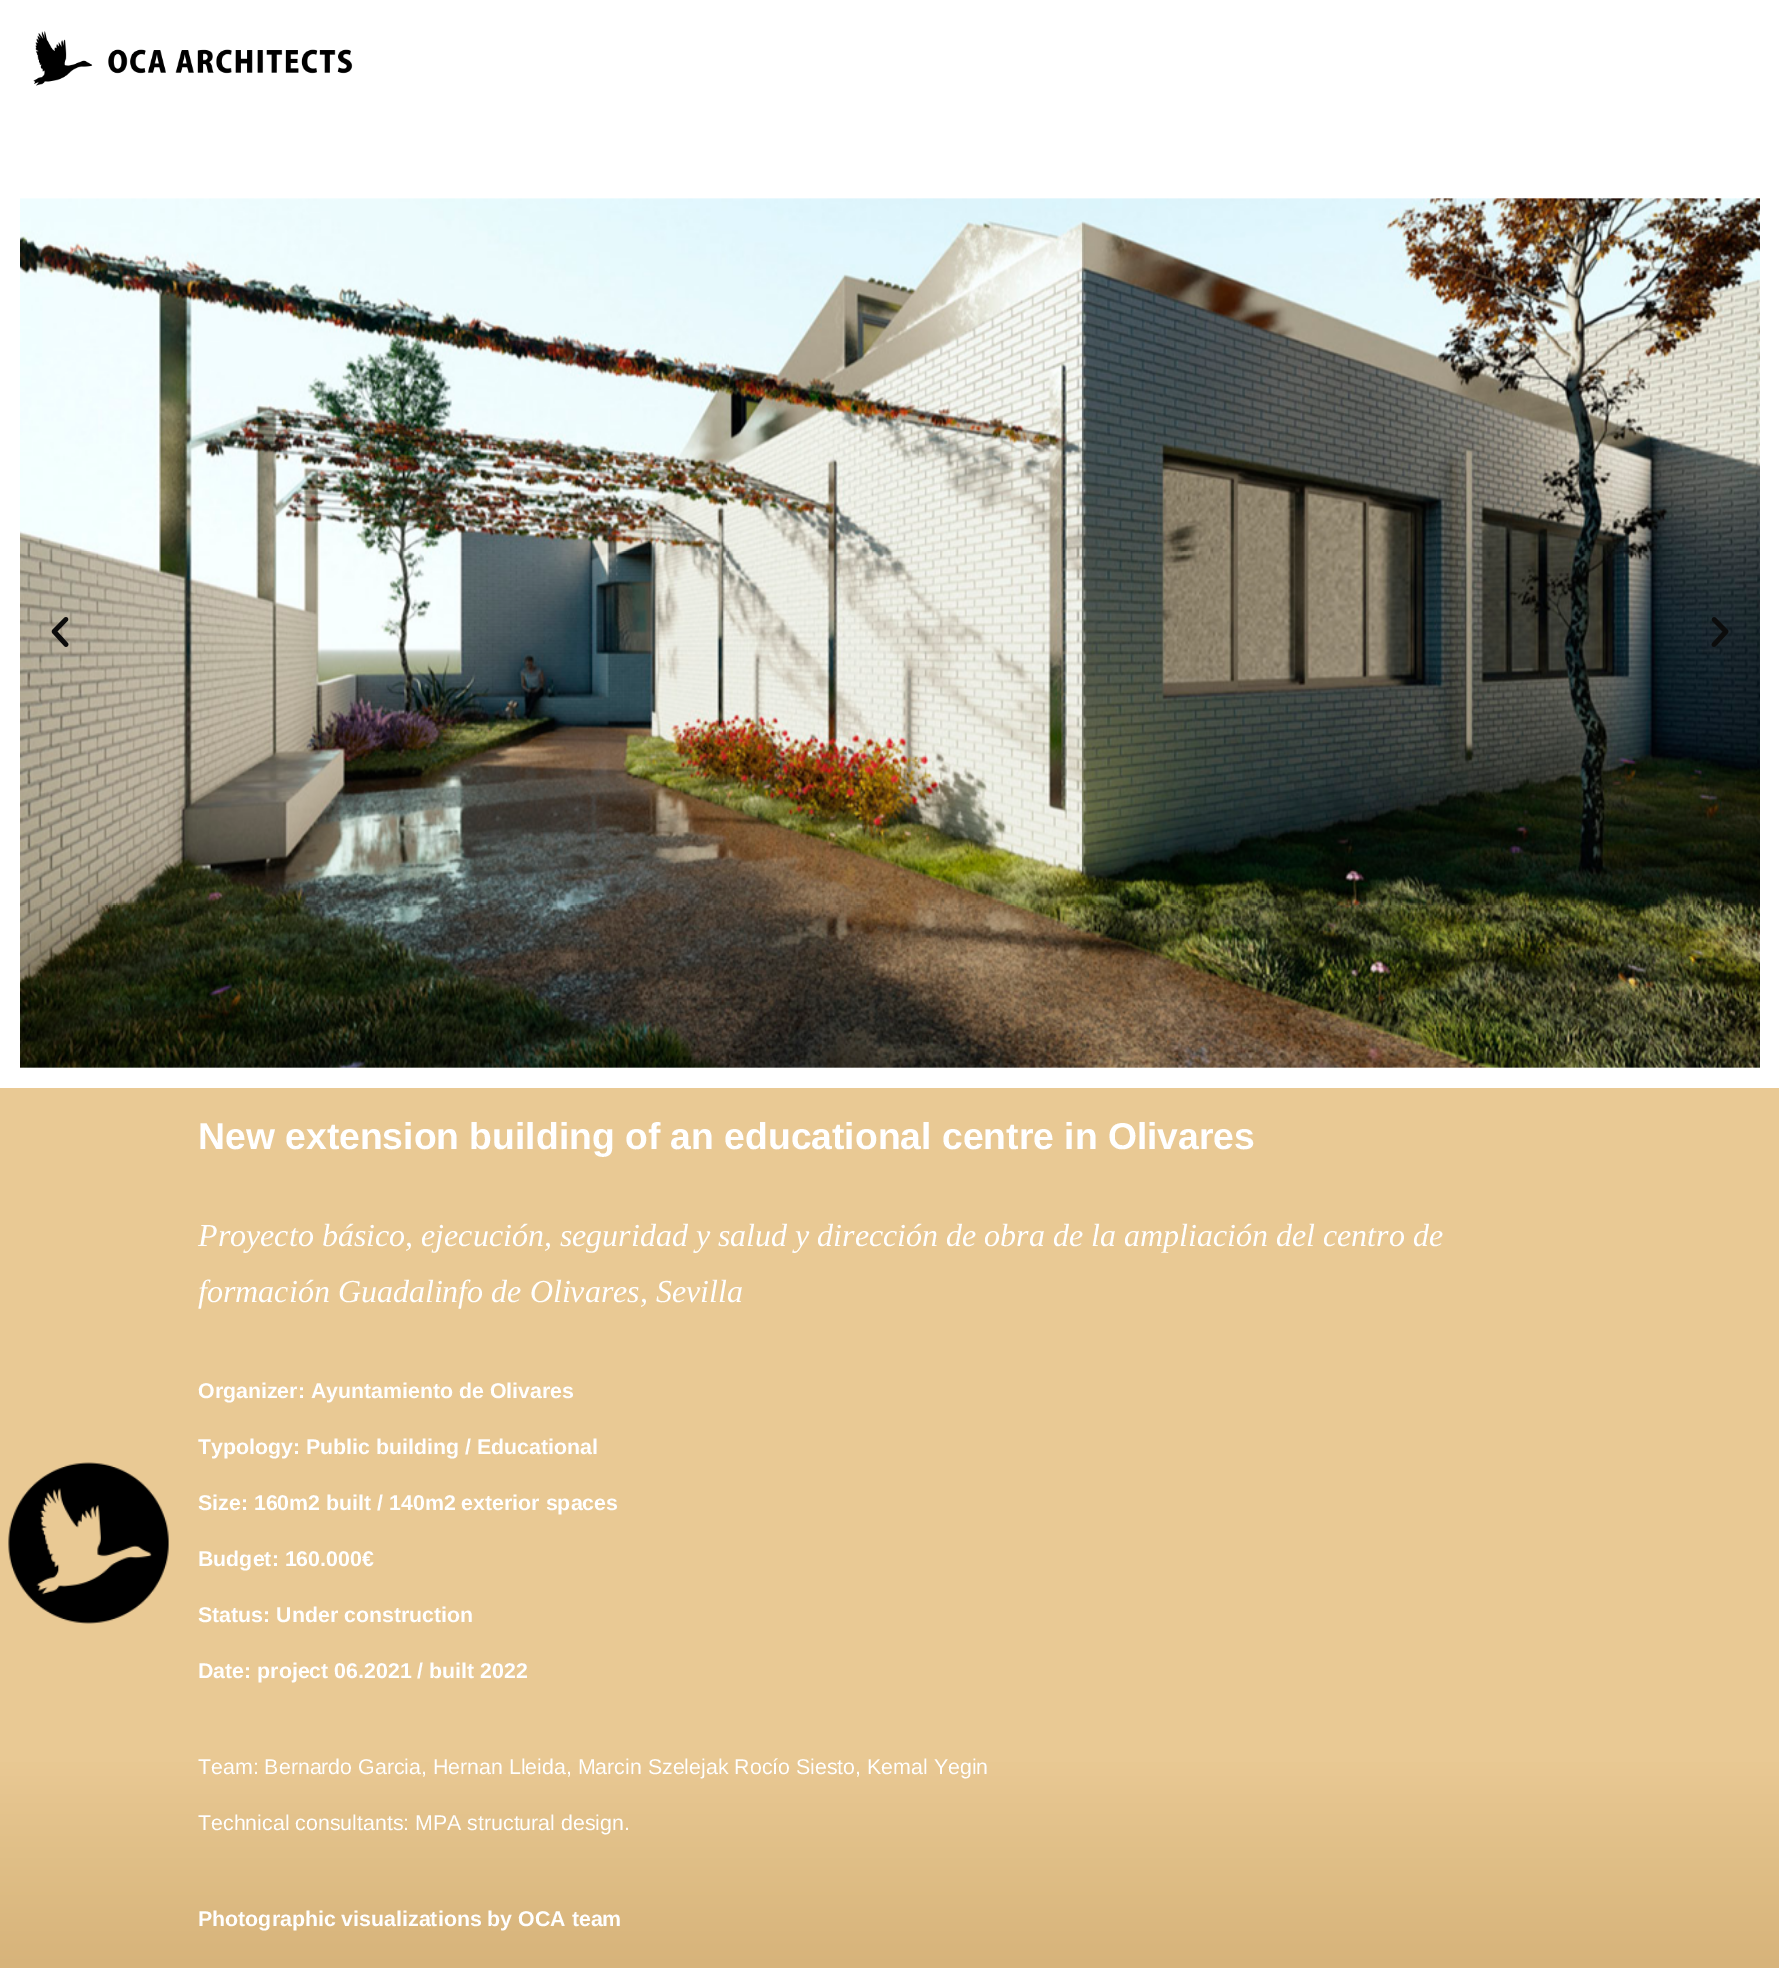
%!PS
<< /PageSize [1779 1968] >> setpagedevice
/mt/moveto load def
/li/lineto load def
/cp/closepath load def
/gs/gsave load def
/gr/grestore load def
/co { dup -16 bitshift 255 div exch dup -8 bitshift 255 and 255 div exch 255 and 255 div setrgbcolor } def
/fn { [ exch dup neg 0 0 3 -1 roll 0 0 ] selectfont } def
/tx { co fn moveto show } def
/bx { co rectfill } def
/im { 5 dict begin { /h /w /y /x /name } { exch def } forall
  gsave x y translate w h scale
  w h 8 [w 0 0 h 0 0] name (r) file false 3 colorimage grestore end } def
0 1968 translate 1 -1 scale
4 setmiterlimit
0 0 1779 1968 16#FFFFFF bx
(media/1.raw) 33 31 320 55 im
(media/2.raw) 20 198 1740 870 im
(media/3.raw) 51 617 18 30 im
(media/4.raw) 1711 617 18 30 im
gs 0 1088 mt 1779 1088 li 1779 1968 li 0 1968 li cp clip newpath
<< /ShadingType 2 /ColorSpace /DeviceRGB /Coords [890 1088 890 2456] /Extend [true true] /Function << /FunctionType 3 /Domain [0 1] /Functions [<< /FunctionType 2 /Domain [0 1] /C0 [.914 .788 .58] /C1 [.914 .788 .58] /N 1 >> << /FunctionType 2 /Domain [0 1] /C0 [.914 .788 .58] /C1 [.678 .502 .239] /N 1 >>] /Bounds [.49] /Encode [0 1 0 1] >> >> shfill gr
(media/5.raw) 8 1462 161 162 im
(New extension building of an educational centre in Olivares) 198 1149 /LiberationSans-Bold 37.3 16#FFFFFF tx
(Proyecto básico, ejecución, seguridad y salud y dirección de obra de la ampliación del centro de) 198 1246 /LiberationSerif-Italic 32 16#FFFFFF tx
(formación Guadalinfo de Olivares, Sevilla) 198 1302 /LiberationSerif-Italic 32 16#FFFFFF tx
(Organizer: Ayuntamiento de Olivares) 198 1398 /LiberationSans-Bold 21.35 16#FFFFFF tx
(Typology: Public building / Educational) 198 1454 /LiberationSans-Bold 21.35 16#FFFFFF tx
(Size: 160m2 built / 140m2 exterior spaces) 198 1510 /LiberationSans-Bold 21.35 16#FFFFFF tx
(Budget: 160.000€) 198 1566 /LiberationSans-Bold 21.35 16#FFFFFF tx
(Status: Under construction) 198 1622 /LiberationSans-Bold 21.35 16#FFFFFF tx
(Date: project 06.2021 / built 2022) 198 1678 /LiberationSans-Bold 21.35 16#FFFFFF tx
(Team: Bernardo Garcia, Hernan Lleida, Marcin Szelejak Rocío Siesto, Kemal Yegin) 198 1774 /LiberationSans-Regular 21.35 16#FFFFFF tx
(Technical consultants: MPA structural design.) 198 1830 /LiberationSans-Regular 21.35 16#FFFFFF tx
(Photographic visualizations by OCA team) 198 1926 /LiberationSans-Bold 21.35 16#FFFFFF tx
showpage
